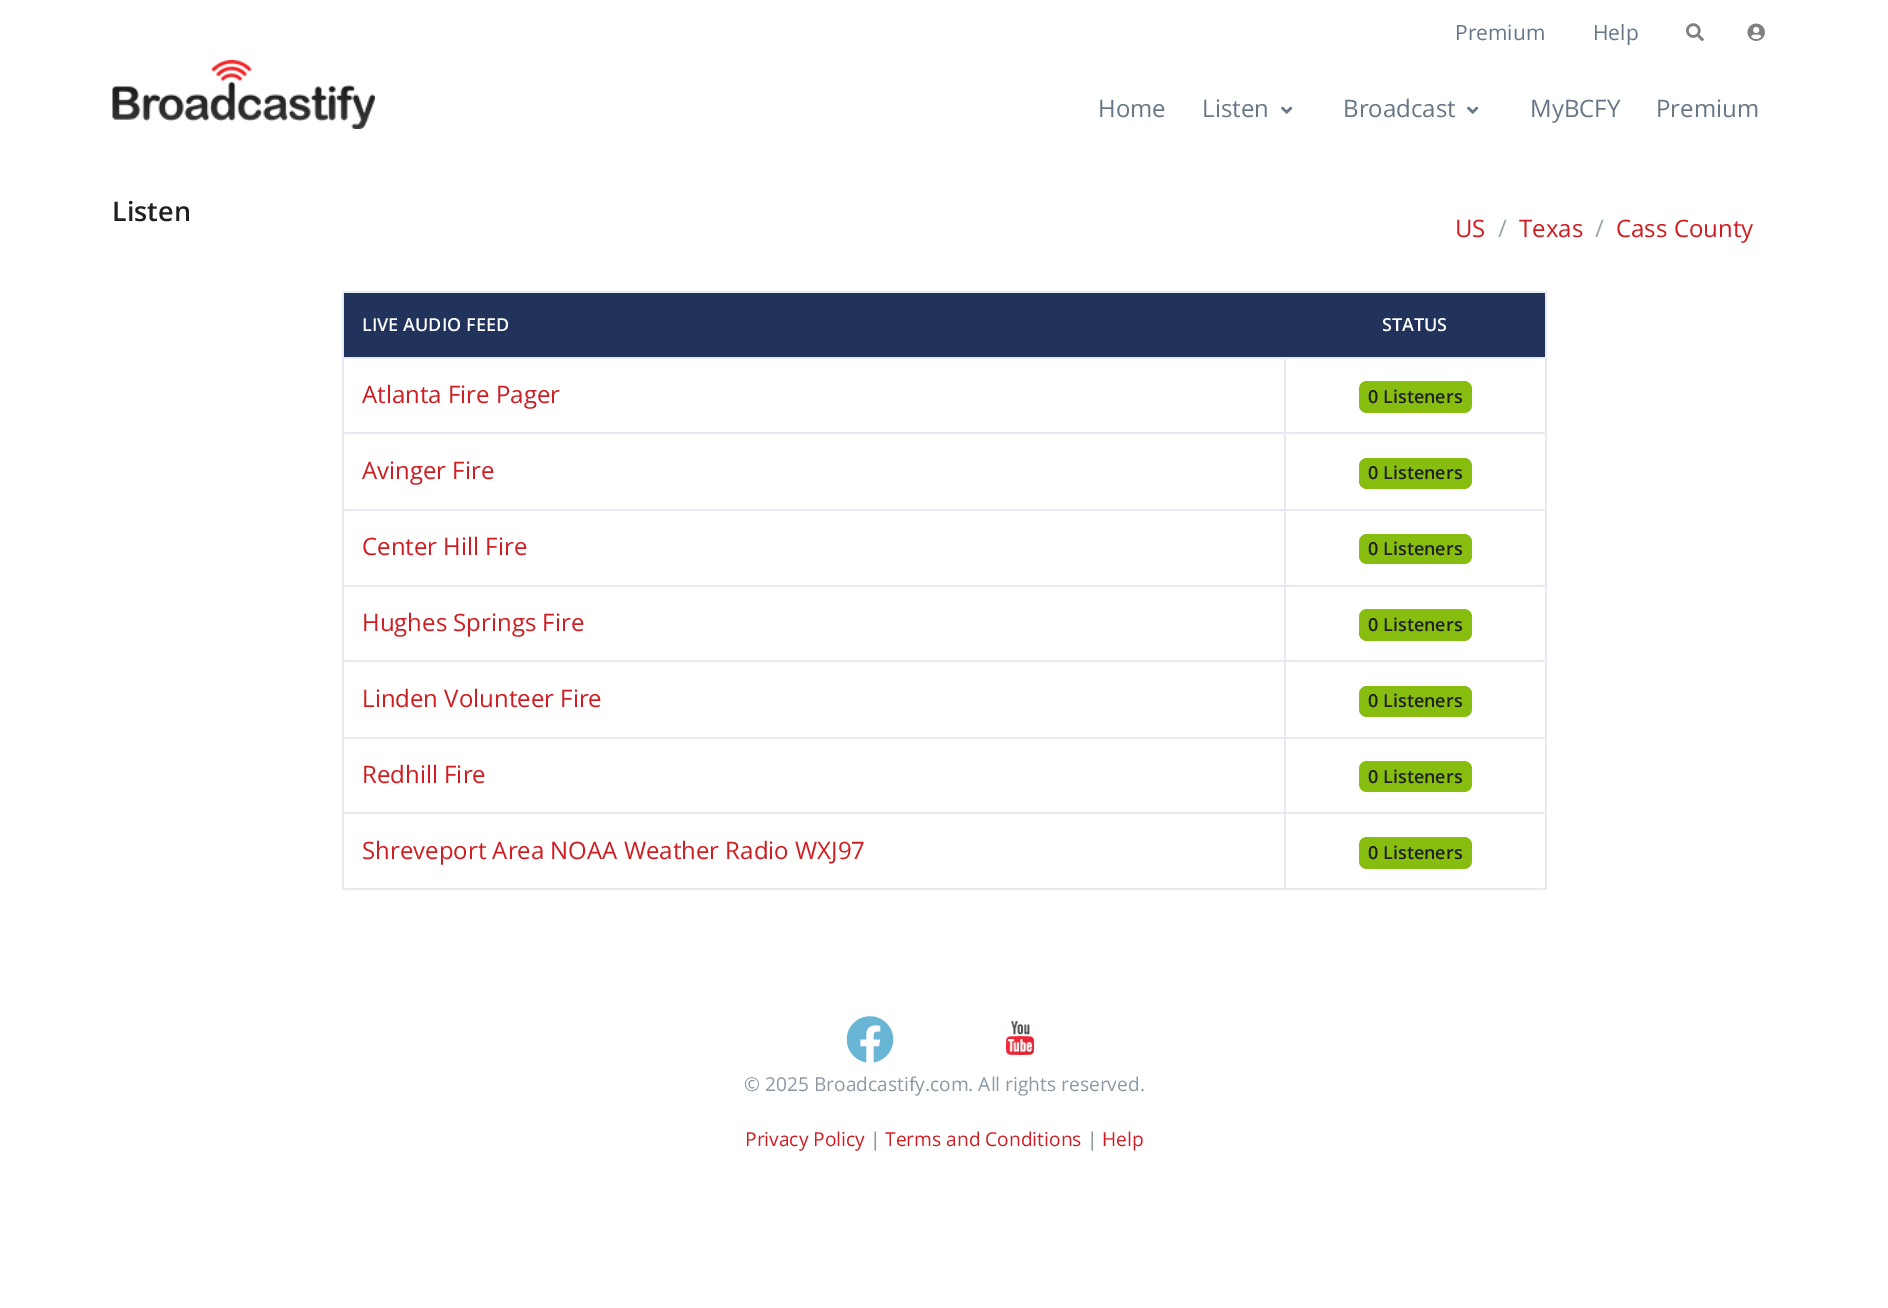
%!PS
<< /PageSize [1888 1308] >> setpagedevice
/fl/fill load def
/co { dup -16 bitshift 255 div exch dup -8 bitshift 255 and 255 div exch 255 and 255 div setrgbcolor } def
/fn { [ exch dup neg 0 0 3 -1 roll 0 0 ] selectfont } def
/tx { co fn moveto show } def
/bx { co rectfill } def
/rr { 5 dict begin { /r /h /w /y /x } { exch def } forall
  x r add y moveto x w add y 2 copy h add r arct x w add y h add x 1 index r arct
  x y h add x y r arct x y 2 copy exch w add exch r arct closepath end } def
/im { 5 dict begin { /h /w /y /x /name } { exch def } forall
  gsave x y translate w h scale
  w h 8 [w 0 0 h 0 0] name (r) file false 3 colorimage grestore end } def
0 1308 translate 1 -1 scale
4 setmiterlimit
0 0 1888 1308 16#FFFFFF bx
(media/1.raw) 1686 23 18 19 im
(media/2.raw) 1747 23 18 18 im
(media/3.raw) 112 60 263 69 im
(media/4.raw) 1281 106 12 8 im
(media/4.raw) 1467 106 12 8 im
342 291 1205 2 16#E7EAF3 bx
1545 291 2 599 16#E7EAF3 bx
342 888 1205 2 16#E7EAF3 bx
342 291 2 599 16#E7EAF3 bx
344 293 1201 64 16#21325B bx
1284 357 263 2 16#E7EAF3 bx
1284 432 263 2 16#E7EAF3 bx
1284 509 263 2 16#E7EAF3 bx
1284 585 263 2 16#E7EAF3 bx
1284 660 263 2 16#E7EAF3 bx
1284 737 263 2 16#E7EAF3 bx
1284 812 263 2 16#E7EAF3 bx
1284 812 2 78 16#E7EAF3 bx
342 812 944 2 16#E7EAF3 bx
1284 737 2 76 16#E7EAF3 bx
342 737 944 2 16#E7EAF3 bx
1284 660 2 78 16#E7EAF3 bx
342 660 944 2 16#E7EAF3 bx
1284 585 2 77 16#E7EAF3 bx
342 585 944 2 16#E7EAF3 bx
1284 509 2 78 16#E7EAF3 bx
342 509 944 2 16#E7EAF3 bx
1284 432 2 78 16#E7EAF3 bx
342 432 944 2 16#E7EAF3 bx
1284 357 2 77 16#E7EAF3 bx
342 357 944 2 16#E7EAF3 bx
16#87BD0E co
1359 381 113 32 8 rr fl
1359 458 113 31 8 rr fl
1359 534 113 30 8 rr fl
1359 609 113 32 8 rr fl
1359 686 113 31 8 rr fl
1359 761 113 31 8 rr fl
1359 837 113 32 8 rr fl
(media/5.raw) 846 1016 48 47 im
(media/6.raw) 1006 1021 29 34 im
(Premium) 1455 40 /OpenSans-Regular 21 16#677788 tx
(Help) 1593 40 /OpenSans-Regular 21 16#677788 tx
(Home) 1098 117 /OpenSans-Regular 24 16#677788 tx
(Listen) 1202 117 /OpenSans-Regular 24 16#677788 tx
(Broadcast) 1343 117 /OpenSans-Regular 24 16#677788 tx
(MyBCFY) 1530 117 /OpenSans-Regular 24 16#677788 tx
(Premium) 1656 117 /OpenSans-Regular 24 16#677788 tx
(Listen) 112 221 /OpenSans-SemiBold 27 16#1E2022 tx
(US) 1455 237 /OpenSans-Regular 24 16#CF1E23 tx
(/) 1498 237 /OpenSans-Regular 24 16#97A4AF tx
(Texas) 1519 237 /OpenSans-Regular 24 16#CF1E23 tx
(/) 1595 237 /OpenSans-Regular 24 16#97A4AF tx
(Cass County) 1616 237 /OpenSans-Regular 24 16#CF1E23 tx
(LIVE AUDIO FEED) 362 331 /OpenSans-SemiBold 18 16#FFFFFF tx
(STATUS) 1382 331 /OpenSans-SemiBold 18 16#FFFFFF tx
(Atlanta Fire Pager) 362 403 /OpenSans-Regular 24 16#CF1E23 tx
(0 Listeners) 1368 403 /OpenSans-SemiBold 18 16#1E2022 tx
(Avinger Fire) 362 479 /OpenSans-Regular 24 16#CF1E23 tx
(0 Listeners) 1368 479 /OpenSans-SemiBold 18 16#1E2022 tx
(Center Hill Fire) 362 555 /OpenSans-Regular 24 16#CF1E23 tx
(0 Listeners) 1368 555 /OpenSans-SemiBold 18 16#1E2022 tx
(Hughes Springs Fire) 362 631 /OpenSans-Regular 24 16#CF1E23 tx
(0 Listeners) 1368 631 /OpenSans-SemiBold 18 16#1E2022 tx
(Linden Volunteer Fire) 362 707 /OpenSans-Regular 24 16#CF1E23 tx
(0 Listeners) 1368 707 /OpenSans-SemiBold 18 16#1E2022 tx
(Redhill Fire) 362 783 /OpenSans-Regular 24 16#CF1E23 tx
(0 Listeners) 1368 783 /OpenSans-SemiBold 18 16#1E2022 tx
(Shreveport Area NOAA Weather Radio WXJ97) 362 859 /OpenSans-Regular 24 16#CF1E23 tx
(0 Listeners) 1368 859 /OpenSans-SemiBold 18 16#1E2022 tx
(© 2025 Broadcastify.com. All rights reserved.) 744 1091 /OpenSans-Regular 19.2 16#8C98A4 tx
(Privacy Policy) 745 1146 /OpenSans-Regular 19.2 16#CF1E23 tx
(|) 870 1146 /OpenSans-Regular 19.2 16#8C98A4 tx
(Terms and Conditions) 885 1146 /OpenSans-Regular 19.2 16#CF1E23 tx
(|) 1087 1146 /OpenSans-Regular 19.2 16#8C98A4 tx
(Help) 1102 1146 /OpenSans-Regular 19.2 16#CF1E23 tx
showpage
